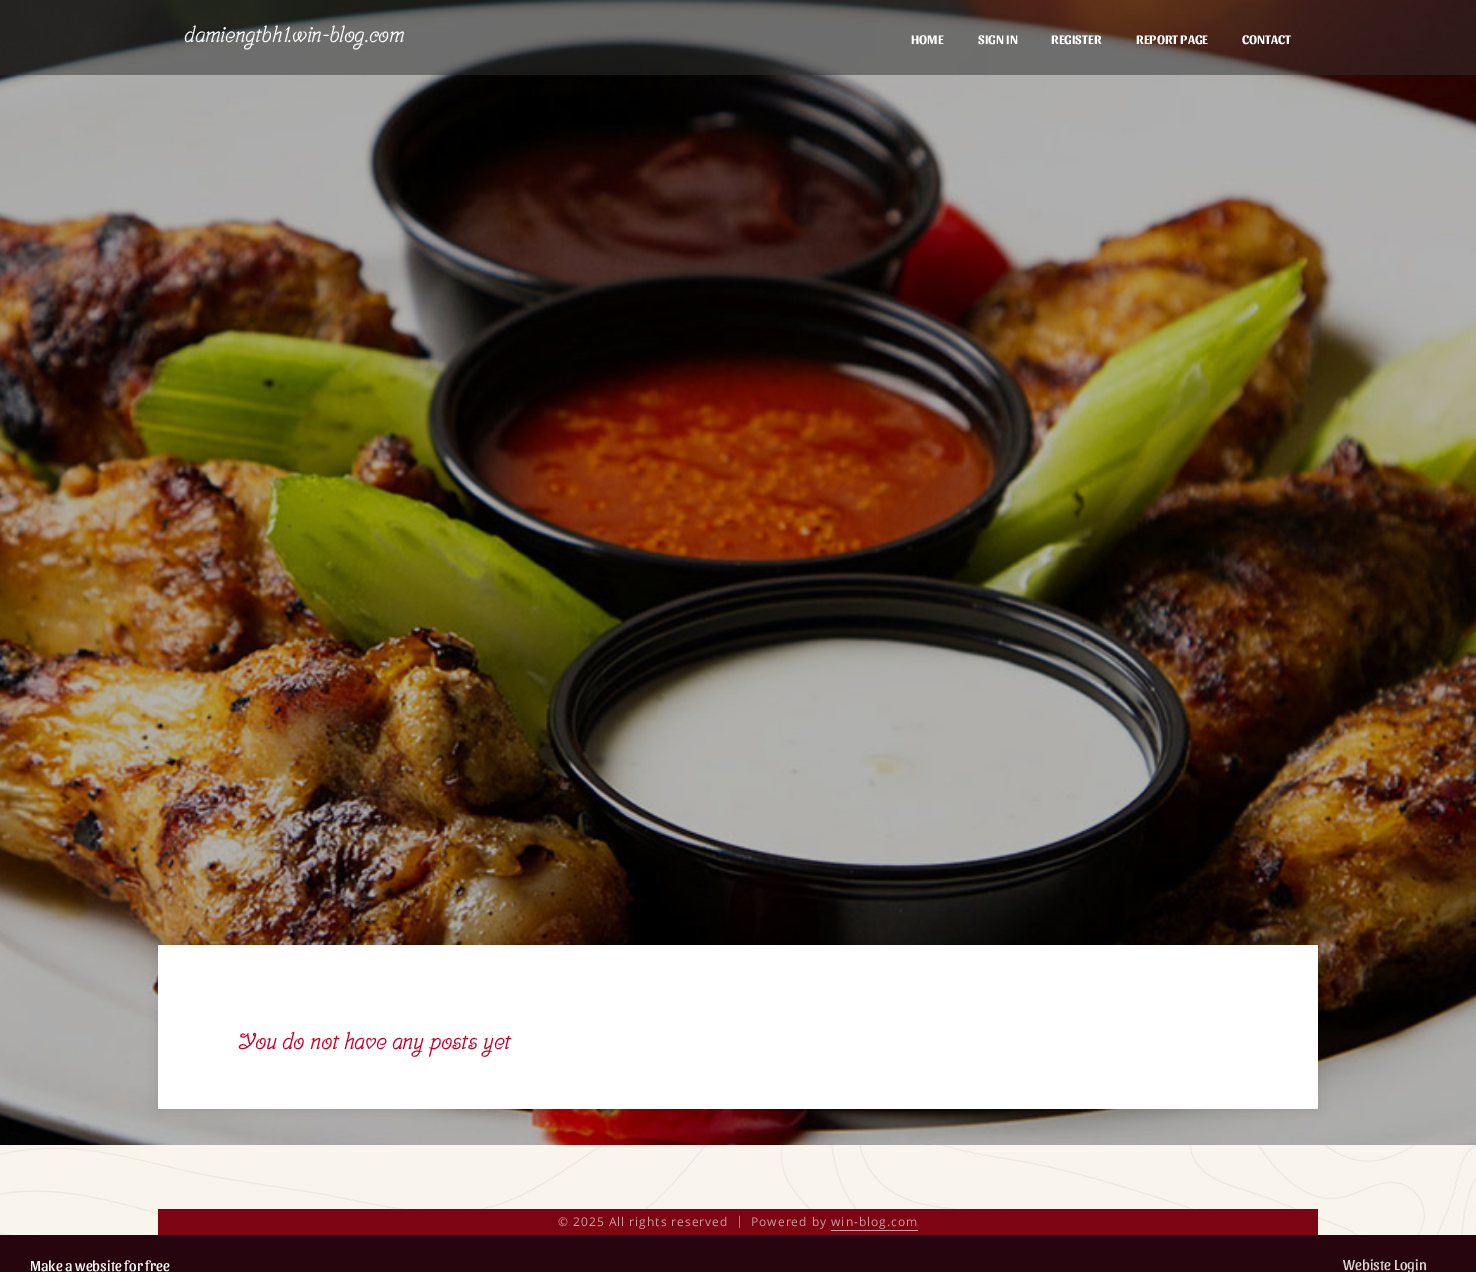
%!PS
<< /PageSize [1476 1272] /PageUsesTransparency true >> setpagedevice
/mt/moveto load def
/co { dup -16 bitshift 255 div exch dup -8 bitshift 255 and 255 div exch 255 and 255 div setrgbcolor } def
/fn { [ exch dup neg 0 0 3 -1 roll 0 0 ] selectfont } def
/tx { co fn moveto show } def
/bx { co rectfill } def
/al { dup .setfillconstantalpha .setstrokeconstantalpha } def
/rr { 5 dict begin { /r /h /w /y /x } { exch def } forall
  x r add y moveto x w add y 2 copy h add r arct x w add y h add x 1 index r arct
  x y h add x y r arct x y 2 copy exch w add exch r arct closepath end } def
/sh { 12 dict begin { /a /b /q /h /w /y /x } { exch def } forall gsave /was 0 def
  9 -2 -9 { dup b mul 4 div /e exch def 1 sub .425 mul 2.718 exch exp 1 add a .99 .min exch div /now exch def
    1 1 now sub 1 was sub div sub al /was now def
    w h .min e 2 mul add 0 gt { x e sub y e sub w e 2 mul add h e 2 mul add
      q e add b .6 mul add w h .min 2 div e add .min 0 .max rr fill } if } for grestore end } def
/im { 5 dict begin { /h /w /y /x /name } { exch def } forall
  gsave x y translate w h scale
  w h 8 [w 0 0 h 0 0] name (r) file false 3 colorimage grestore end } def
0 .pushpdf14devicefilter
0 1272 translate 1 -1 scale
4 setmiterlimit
0 0 1476 1272 16#FFFFFF bx
(media/1.raw) 0 1145 1476 90 im
(media/2.raw) 0 0 1476 1145 im
0.5 al
0 0 1476 75 16#2F2F2F bx
1 al
16#000000 co
158 945 1160 164 0 5 .1 sh
158 945 1160 164 16#FFFFFF bx
158 1209 1160 26 16#7D0412 bx
831 1230 87 1 16#CB9BA0 bx
0 1235 1476 37 16#27050F bx
(damiengtbh1.win-blog.com) 184 42 /Srisakdi-Bold 21 16#FFFFFF tx
(HOME) 911 44 /Sansita-Bold 13 16#FFFFFF tx
(SIGN IN) 978 44 /Sansita-Bold 13 16#FFFFFF tx
(REGISTER) 1051 44 /Sansita-Bold 13 16#FFFFFF tx
(REPORT PAGE) 1136 44 /Sansita-Bold 13 16#FFFFFF tx
(CONTACT) 1242 44 /Sansita-Bold 13 16#FFFFFF tx
(You do not have any posts yet) 238 1049 /Srisakdi-Bold 22 16#CA0027 tx
/OpenSans-Regular 12 fn
16#CB9BA0 co
558 1226 mt 1 0 (© 2025 All rights reserved) ashow
736 1225 mt 1 0 (|) ashow
751 1226 mt 1 0 (Powered by win-blog.com) ashow
(Make a website for free) 30 1271 /Sansita-Regular 15 16#FFFFFF tx
(Webiste Login) 1343 1270 /Sansita-Regular 15 16#DAD5D6 tx
.poppdf14devicefilter showpage
